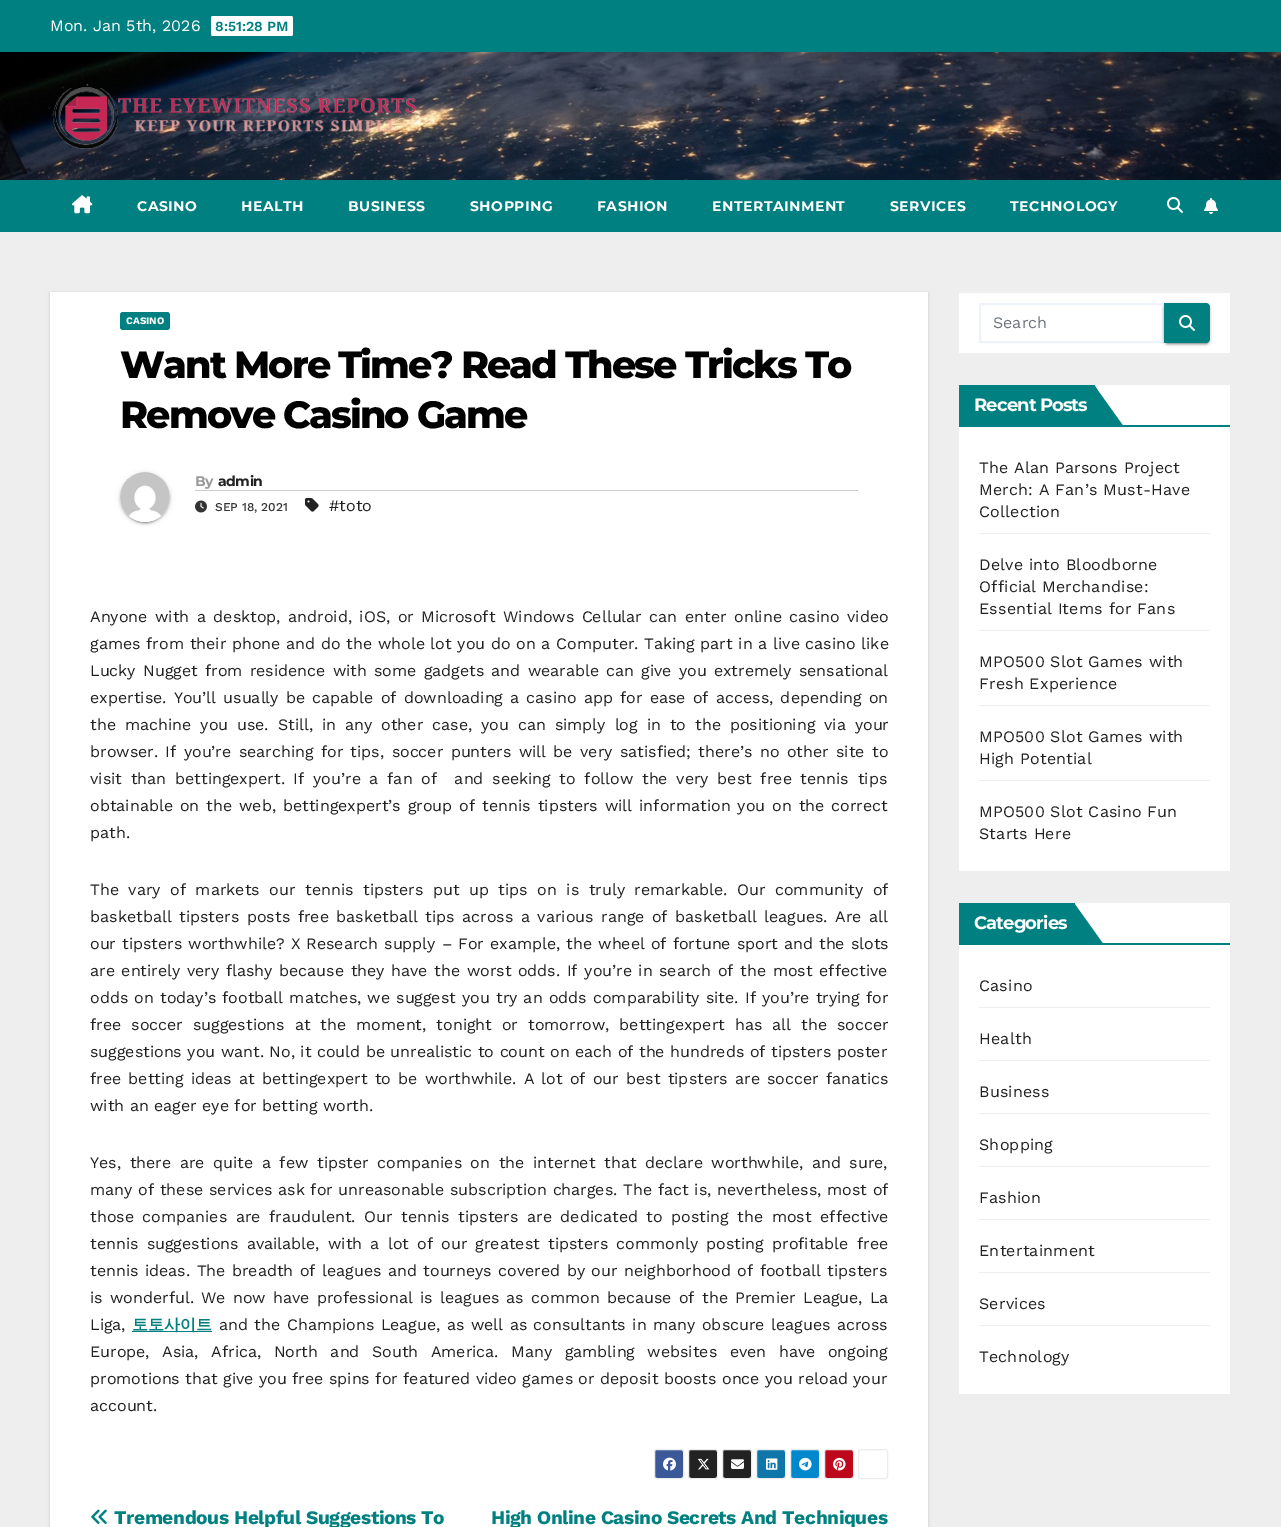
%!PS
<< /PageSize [1281 1527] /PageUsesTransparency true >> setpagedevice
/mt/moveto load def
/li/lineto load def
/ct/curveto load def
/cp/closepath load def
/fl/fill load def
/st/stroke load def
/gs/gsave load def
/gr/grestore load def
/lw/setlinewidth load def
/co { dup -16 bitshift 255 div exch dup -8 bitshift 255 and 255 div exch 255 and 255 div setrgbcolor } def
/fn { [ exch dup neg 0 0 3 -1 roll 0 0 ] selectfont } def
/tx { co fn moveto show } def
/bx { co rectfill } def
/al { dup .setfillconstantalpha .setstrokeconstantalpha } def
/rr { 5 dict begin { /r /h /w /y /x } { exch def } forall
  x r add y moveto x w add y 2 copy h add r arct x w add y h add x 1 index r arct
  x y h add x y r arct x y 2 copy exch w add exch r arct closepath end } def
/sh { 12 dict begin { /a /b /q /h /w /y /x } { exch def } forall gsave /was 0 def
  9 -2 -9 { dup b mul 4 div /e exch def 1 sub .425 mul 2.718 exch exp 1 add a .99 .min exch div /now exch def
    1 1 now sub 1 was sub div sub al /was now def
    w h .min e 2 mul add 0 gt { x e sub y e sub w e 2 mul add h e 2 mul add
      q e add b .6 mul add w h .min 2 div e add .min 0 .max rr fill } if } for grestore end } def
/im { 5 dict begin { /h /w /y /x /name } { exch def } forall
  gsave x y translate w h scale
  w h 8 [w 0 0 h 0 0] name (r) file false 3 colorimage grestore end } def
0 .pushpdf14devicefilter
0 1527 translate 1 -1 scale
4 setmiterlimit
0 0 1281 1527 16#EEEEEE bx
0 0 1281 52 16#008080 bx
16#FFFFFF co
211 16 82 20 2 rr fl
(media/1.raw) 0 52 1281 128 im
(media/2.raw) 53 87 363 62 im
0 180 1281 52 16#008080 bx
(media/3.raw) 72 195 21 19 im
(media/4.raw) 1167 197 16 16 im
(media/5.raw) 1204 198 14 16 im
16#000000 co
50 293 878 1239 0 1.5 .15 sh
50 292 878 1235 16#FFFFFF bx
16#008080 co
120 312 50 18 3 rr fl
16#000000 co
120 473 50 50 25 2.5 .12 sh
122 477 46 46 23 .5 .2 sh
120 474 50 50 25 1 .14 sh
(media/6.raw) 120 472 50 50 im
195 490 663 1 16#CCCCCC bx
(media/7.raw) 195 500 12 13 im
(media/8.raw) 305 498 14 14 im
132 1331 80 1 16#008080 bx
16#3B5998 co
654.5 1449.5 29 29 2.5 rr gs fl gr
16#EBEBEB co
st
(media/9.raw) 663 1457 13 14 im
16#222222 co
688.5 1449.5 29 29 2.5 rr gs fl gr
16#EBEBEB co
st
(media/10.raw) 697 1458 13 12 im
16#222222 co
722.5 1449.5 29 29 2.5 rr gs fl gr
16#EBEBEB co
st
(media/11.raw) 731 1459 13 10 im
16#0E76A8 co
756.5 1449.5 29 29 2.5 rr gs fl gr
16#EBEBEB co
st
(media/12.raw) 766 1458 12 12 im
16#0088CC co
790.5 1449.5 29 29 2.5 rr gs fl gr
16#EBEBEB co
st
(media/13.raw) 799 1457 13 14 im
16#BD081C co
824.5 1449.5 29 29 2.5 rr gs fl gr
16#EBEBEB co
st
(media/14.raw) 833 1457 13 14 im
858.5 1449.5 29 29 2.5 rr st
(media/15.raw) 91 1509 16 15 im
959 293 271 60 16#FFFFFF bx
16#EEF3FB co
2 lw
980 304 183 38 rectstroke
16#000000 co
1164 304 46 40 4 2.5 .12 sh
1166 308 42 36 2 .5 .2 sh
1164 305 46 40 4 1 .14 sh
16#008080 co
1164 303 mt 1206 303 li 1208 303 1210 305 1210 307 ct 1210 339 li 1210 341 1208 343 1206 343 ct 1164 343 li cp fl
(media/4.raw) 1179 315 16 16 im
959 385 271 486 16#FFFFFF bx
959 425 271 2 16#008080 bx
959 385 136 40 16#008080 bx
1094 385 mt 1124 427 li 1094 427 li cp fl
1094 385 mt 1097 389 li 1097 424 li 1094 427 li cp fl
979 533 231 1 16#EEEEEE bx
979 630 231 1 16#EEEEEE bx
979 705 231 1 16#EEEEEE bx
979 780 231 1 16#EEEEEE bx
959 903 271 491 16#FFFFFF bx
959 943 271 2 16#008080 bx
959 903 116 40 16#008080 bx
1074 903 mt 1104 945 li 1074 945 li cp fl
1074 903 mt 1077 908 li 1077 942 li 1074 945 li cp fl
979 1007 231 1 16#EEEEEE bx
979 1060 231 1 16#EEEEEE bx
979 1113 231 1 16#EEEEEE bx
979 1166 231 1 16#EEEEEE bx
979 1219 231 1 16#EEEEEE bx
979 1272 231 1 16#EEEEEE bx
979 1325 231 1 16#EEEEEE bx
(Mon. Jan 5th, 2026) 50 31 /WorkSans-Regular 16 16#FFFFFF tx
(8:51:28 PM) 215 31 /WorkSans-SemiBold 14 16#008080 tx
/Montserrat-Bold 14 fn
16#FFFFFF co
137 211 mt .5 0 (CASINO) ashow
241 211 mt .5 0 (HEALTH) ashow
348 211 mt .5 0 (BUSINESS) ashow
470 211 mt .5 0 (SHOPPING) ashow
597 211 mt .5 0 (FASHION) ashow
712 211 mt .5 0 (ENTERTAINMENT) ashow
890 211 mt .5 0 (SERVICES) ashow
1010 211 mt .5 0 (TECHNOLOGY) ashow
(CASINO) 126 324 /WorkSans-Bold 10 16#FFFFFF tx
/Montserrat-ExtraBold 38 fn
16#000000 co
120 378 mt -1.9 0 (Want More Time? Read These Tricks To) ashow
120 428 mt -1.9 0 (Remove Casino Game) ashow
/Montserrat-Bold 14 fn
16#999999 co
195 486 mt -.5 0 (By) ashow
16#212121 co
218 486 mt -.5 0 (admin) ashow
(SEP 18, 2021) 215 511 /WorkSans-Medium 12 16#333333 tx
(#toto) 329 511 /WorkSans-Regular 16 16#212121 tx
90 622 mt 2.1 0 32 (Anyone with a desktop, android, iOS, or Microsoft Windows Cellular can enter online casino video) widthshow
90 649 mt .25 0 32 (games from their phone and do the whole lot you do on a Computer. Taking part in a live casino like) widthshow
90 676 mt 1.75 0 32 (Lucky Nugget from residence with some gadgets and wearable can give you extremely sensational) widthshow
90 703 mt 1.75 0 32 (expertise. You’ll usually be capable of downloading a casino app for ease of access, depending on) widthshow
90 730 mt 3.5 0 32 (the machine you use. Still, in any other case, you can simply log in to the positioning via your) widthshow
90 757 mt 1.9 0 32 (browser. If you’re searching for tips, soccer punters will be very satisfied; there’s no other site to) widthshow
90 784 mt 3.25 0 32 (visit than bettingexpert. If you’re a fan of  and seeking to follow the very best free tennis tips) widthshow
90 811 mt 1.5 0 32 (obtainable on the web, bettingexpert’s group of tennis tipsters will information you on the correct) widthshow
(path.) 90 838 /WorkSans-Regular 16 16#212121 tx
90 895 mt 4.1 0 32 (The vary of markets our tennis tipsters put up tips on is truly remarkable. Our community of) widthshow
90 922 mt 2.1 0 32 (basketball tipsters posts free basketball tips across a various range of basketball leagues. Are all) widthshow
90 949 mt .5 0 32 (our tipsters worthwhile? X Research supply – For example, the wheel of fortune sport and the slots) widthshow
90 976 mt 1.1 0 32 (are entirely very flashy because they have the worst odds. If you’re in search of the most effective) widthshow
90 1003 mt .7 0 32 (odds on today’s football matches, we suggest you try an odds comparability site. If you’re trying for) widthshow
90 1030 mt 4.5 0 32 (free soccer suggestions at the moment, tonight or tomorrow, bettingexpert has all the soccer) widthshow
(suggestions you want. No, it could be unrealistic to count on each of the hundreds of tipsters poster) 90 1057 /WorkSans-Regular 16 16#212121 tx
90 1084 mt 1.7 0 32 (free betting ideas at bettingexpert to be worthwhile. A lot of our best tipsters are soccer fanatics) widthshow
(with an eager eye for betting worth.) 90 1111 /WorkSans-Regular 16 16#212121 tx
90 1168 mt 3.1 0 32 (Yes, there are quite a few tipster companies on the internet that declare worthwhile, and sure,) widthshow
90 1195 mt .25 0 32 (many of these services ask for unreasonable subscription charges. The fact is, nevertheless, most of) widthshow
90 1222 mt 3.1 0 32 (those companies are fraudulent. Our tennis tipsters are dedicated to posting the most effective) widthshow
90 1249 mt 2.75 0 32 (tennis suggestions available, with a lot of our greatest tipsters commonly posting profitable free) widthshow
90 1276 mt 1 0 32 (tennis ideas. The breadth of leagues and tourneys covered by our neighborhood of football tipsters) widthshow
90 1303 mt 1.75 0 32 (is wonderful. We now have professional is leagues as common because of the Premier League, La) widthshow
(Liga,) 90 1330 /WorkSans-Regular 16 16#212121 tx
(토토사이트) 132 1330 /WenQuanYiZenHei-Bold 16 16#008080 tx
/WorkSans-Regular 16 fn
16#212121 co
219 1330 mt 1 0 32 (and the Champions League, as well as consultants in many obscure leagues across) widthshow
90 1357 mt 7 0 32 (Europe, Asia, Africa, North and South America. Many gambling websites even have ongoing) widthshow
(promotions that give you free spins for featured video games or deposit boosts once you reload your) 90 1384 /WorkSans-Regular 16 16#212121 tx
(account.) 90 1411 /WorkSans-Regular 16 16#212121 tx
/WorkSans-Bold 19.2 fn
16#008080 co
114 1524 mt -.4 0 (Tremendous Helpful Suggestions To) ashow
491 1524 mt -.4 0 (High Online Casino Secrets And Techniques) ashow
(Search) 993 328 /WorkSans-Regular 16 16#6C757D tx
/Montserrat-Bold 18 fn
16#FFFFFF co
974 411 mt -.9 0 (Recent Posts) ashow
/WorkSans-Regular 16 fn
16#212121 co
979 473 mt .2 0 (The Alan Parsons Project) ashow
979 495 mt .2 0 (Merch: A Fan’s Must-Have) ashow
979 517 mt .2 0 (Collection) ashow
979 570 mt .2 0 (Delve into Bloodborne) ashow
979 592 mt .2 0 (Official Merchandise:) ashow
979 614 mt .2 0 (Essential Items for Fans) ashow
979 667 mt .2 0 (MPO500 Slot Games with) ashow
979 689 mt .2 0 (Fresh Experience) ashow
979 742 mt .2 0 (MPO500 Slot Games with) ashow
979 764 mt .2 0 (High Potential) ashow
979 817 mt .2 0 (MPO500 Slot Casino Fun) ashow
979 839 mt .2 0 (Starts Here) ashow
/Montserrat-Bold 18 fn
16#FFFFFF co
974 929 mt -.9 0 (Categories) ashow
/WorkSans-Regular 16 fn
16#212121 co
979 991 mt .2 0 (Casino) ashow
979 1044 mt .2 0 (Health) ashow
979 1097 mt .2 0 (Business) ashow
979 1150 mt .2 0 (Shopping) ashow
979 1203 mt .2 0 (Fashion) ashow
979 1256 mt .2 0 (Entertainment) ashow
979 1309 mt .2 0 (Services) ashow
979 1362 mt .2 0 (Technology) ashow
.poppdf14devicefilter showpage
